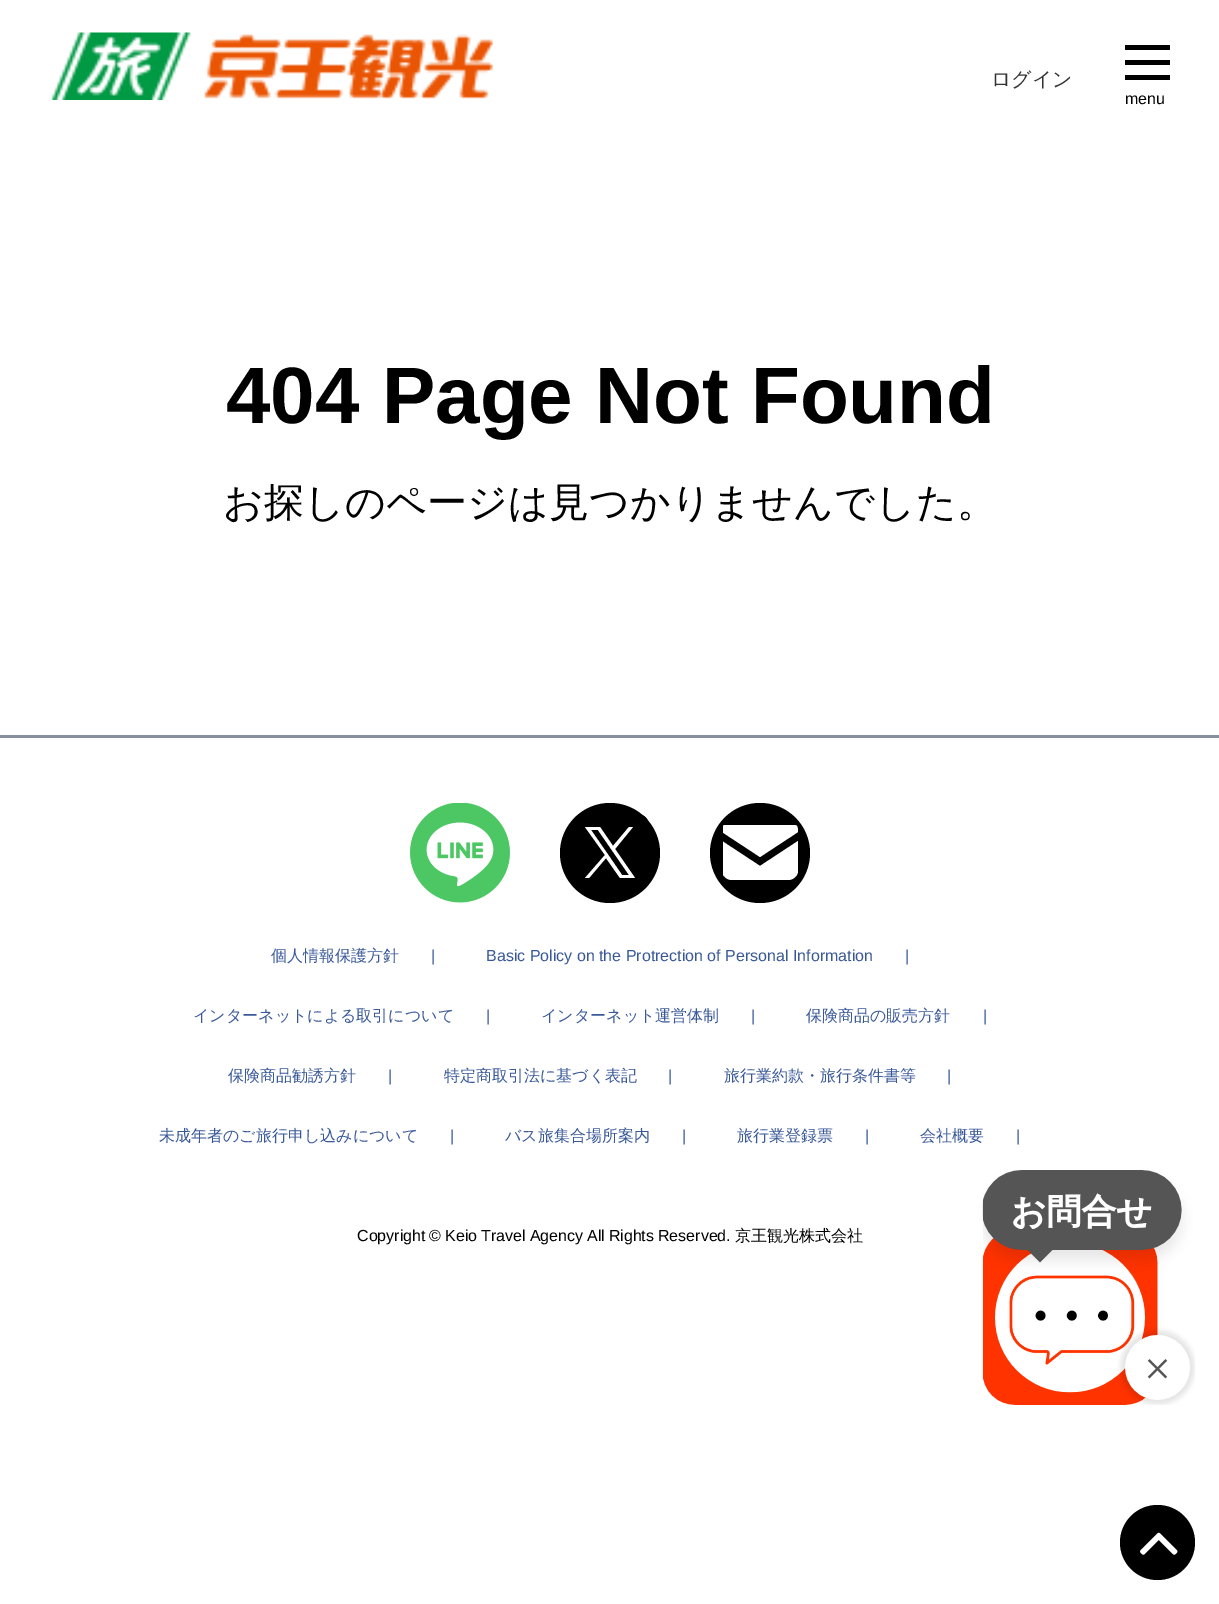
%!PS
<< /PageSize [1219 1604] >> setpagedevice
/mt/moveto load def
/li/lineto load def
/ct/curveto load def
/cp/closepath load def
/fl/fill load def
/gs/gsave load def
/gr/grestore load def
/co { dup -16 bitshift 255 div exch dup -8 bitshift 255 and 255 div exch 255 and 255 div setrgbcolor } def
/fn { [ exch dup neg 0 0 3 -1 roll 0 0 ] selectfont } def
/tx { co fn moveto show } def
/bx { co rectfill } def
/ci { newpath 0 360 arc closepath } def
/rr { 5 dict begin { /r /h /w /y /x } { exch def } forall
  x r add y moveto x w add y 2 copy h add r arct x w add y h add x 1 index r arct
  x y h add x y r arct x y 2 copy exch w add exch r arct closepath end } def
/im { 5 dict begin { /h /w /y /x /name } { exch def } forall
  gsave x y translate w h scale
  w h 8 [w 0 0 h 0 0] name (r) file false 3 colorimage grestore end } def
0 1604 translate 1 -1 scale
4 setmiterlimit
0 0 1219 1604 16#FFFFFF bx
(media/1.raw) 51 32 442 68 im
1125 75 45 5 16#000000 bx
1125 45 45 5 16#000000 bx
1125 60 45 5 16#000000 bx
0 735 1219 3 16#86919D bx
(media/2.raw) 410 803 100 100 im
16#000000 co
610 853 50 ci fl
573 815 75 75 8 rr fl
16#FFFFFF co
615 849 mt 633 827 li 629 827 li 613 846 li 600 827 li 585 827 li 605 855 li 585 878 li 589 878 li 606 858 li 620 878 li 635 878 li cp 609 856 mt 591 830 li 598 830 li 629 875 li 622 875 li cp fl
16#000000 co
760 853 50 ci fl
gs
723 815 75 75 rectclip
16#FFFFFF co
795 825 mt 725 825 li 724 825 722 826 722 827 ct 722 832 li 760 857 li 798 832 li 798 830 798 825 795 825 ct cp fl
722 841 mt 722 871 li 722 876 727 880 732 880 ct 788 880 li 793 880 798 876 798 871 ct 798 841 li 760 866 li cp fl
gr
1157.5 1542.5 37.5 ci fl
(media/3.raw) 1140 1532 38 23 im
(media/4.raw) 982 1170 213 235 im
(ログイン) 991 86 /WenQuanYiZenHei-Medium 20 16#333333 tx
(menu) 1125 104 /LiberationSans-Regular 16 16#000000 tx
(404 Page Not Found) 226 423 /LiberationSans-Bold 80 16#000000 tx
(お探しのページは見つかりませんでした。) 223 516 /WenQuanYiZenHei-Medium 40 16#000000 tx
(個人情報保護方針) 271 961 /WenQuanYiZenHei-Medium 16 16#385898 tx
(|) 431 961 /LiberationSans-Regular 16 16#385898 tx
(Basic Policy on the Protrection of Personal Information) 486 961 /LiberationSans-Regular 16 16#385898 tx
(|) 905 961 /LiberationSans-Regular 16 16#385898 tx
(インターネットによる取引について) 193 1021 /WenQuanYiZenHei-Medium 16 16#385898 tx
(|) 486 1021 /LiberationSans-Regular 16 16#385898 tx
(インターネット運営体制) 541 1021 /WenQuanYiZenHei-Medium 16 16#385898 tx
(|) 751 1021 /LiberationSans-Regular 16 16#385898 tx
(保険商品の販売方針) 806 1021 /WenQuanYiZenHei-Medium 16 16#385898 tx
(|) 983 1021 /LiberationSans-Regular 16 16#385898 tx
(保険商品勧誘方針) 228 1081 /WenQuanYiZenHei-Medium 16 16#385898 tx
(|) 388 1081 /LiberationSans-Regular 16 16#385898 tx
(特定商取引法に基づく表記) 444 1081 /WenQuanYiZenHei-Medium 16 16#385898 tx
(|) 668 1081 /LiberationSans-Regular 16 16#385898 tx
(旅行業約款・旅行条件書等) 724 1081 /WenQuanYiZenHei-Medium 16 16#385898 tx
(|) 947 1081 /LiberationSans-Regular 16 16#385898 tx
(未成年者のご旅行申し込みについて) 159 1141 /WenQuanYiZenHei-Medium 16 16#385898 tx
(|) 450 1141 /LiberationSans-Regular 16 16#385898 tx
(バス旅集合場所案内) 505 1141 /WenQuanYiZenHei-Medium 16 16#385898 tx
(|) 682 1141 /LiberationSans-Regular 16 16#385898 tx
(旅行業登録票) 737 1141 /WenQuanYiZenHei-Medium 16 16#385898 tx
(|) 865 1141 /LiberationSans-Regular 16 16#385898 tx
(会社概要) 920 1141 /WenQuanYiZenHei-Medium 16 16#385898 tx
(|) 1016 1141 /LiberationSans-Regular 16 16#385898 tx
16#000000 co
357 1241 mt -.5 0 32 (Copyright © Keio Travel Agency All Rights Reserved.) widthshow
(京王観光株式会社) 735 1241 /WenQuanYiZenHei-Medium 16 16#000000 tx
showpage
